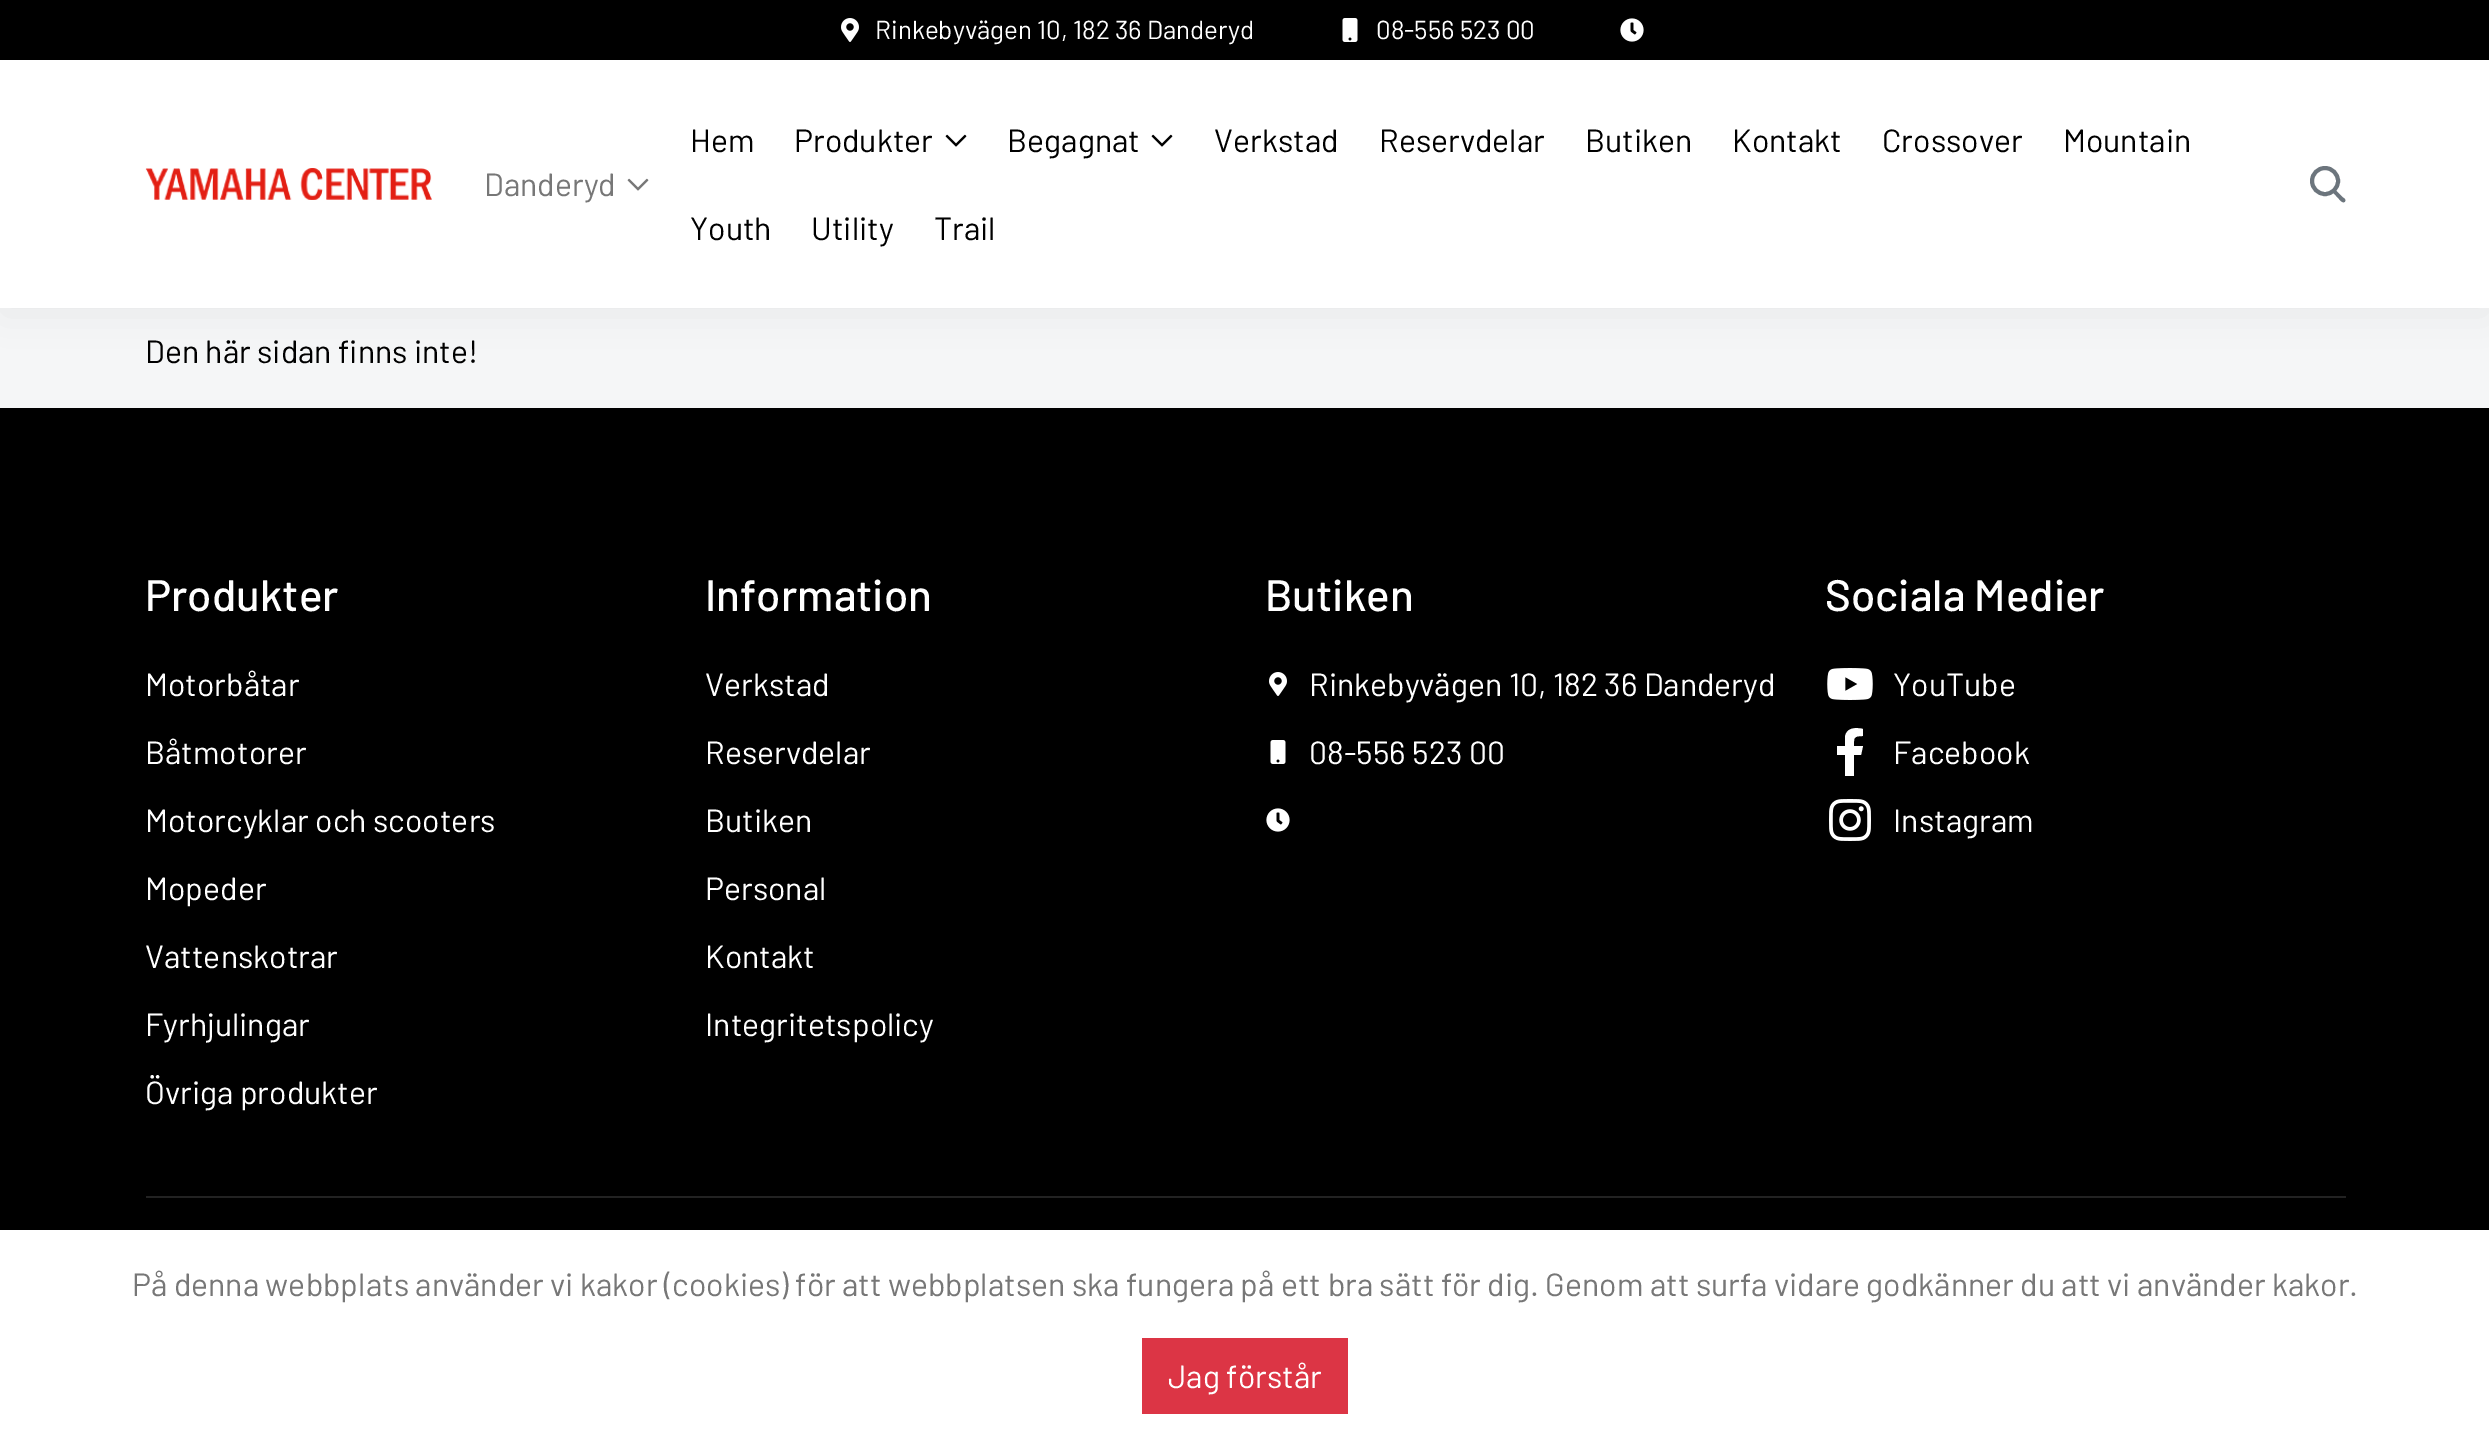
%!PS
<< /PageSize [2489 1443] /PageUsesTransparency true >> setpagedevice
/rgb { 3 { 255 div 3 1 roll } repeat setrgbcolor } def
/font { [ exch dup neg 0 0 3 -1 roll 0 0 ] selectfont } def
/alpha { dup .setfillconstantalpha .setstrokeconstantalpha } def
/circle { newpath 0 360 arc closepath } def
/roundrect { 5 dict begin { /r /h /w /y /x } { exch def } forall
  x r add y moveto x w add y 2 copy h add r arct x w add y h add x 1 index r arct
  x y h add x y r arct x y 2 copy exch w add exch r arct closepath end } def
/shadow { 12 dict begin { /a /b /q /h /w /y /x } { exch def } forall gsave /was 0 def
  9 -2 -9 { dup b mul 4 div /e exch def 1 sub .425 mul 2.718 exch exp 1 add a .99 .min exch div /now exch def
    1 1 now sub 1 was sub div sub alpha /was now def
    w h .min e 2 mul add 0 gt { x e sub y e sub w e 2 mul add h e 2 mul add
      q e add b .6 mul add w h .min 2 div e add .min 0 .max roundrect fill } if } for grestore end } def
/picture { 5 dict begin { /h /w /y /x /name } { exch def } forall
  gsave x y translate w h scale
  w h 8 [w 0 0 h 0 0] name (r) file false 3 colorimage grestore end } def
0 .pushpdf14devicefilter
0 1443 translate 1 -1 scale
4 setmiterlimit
245 246 247 rgb
0 0 2489 1443 rectfill
0 0 0 rgb
0 0 2489 60 rectfill
(img/1.rgb) 841 18 18 24 picture
(img/2.rgb) 1342 18 16 24 picture
(img/3.rgb) 1620 18 24 24 picture
2 70 2486 244 0 20 0.05 shadow
255 255 255 rgb
0 60 2489 248 rectfill
(img/4.rgb) 145 168 287 32 picture
(img/5.rgb) 627 178 22 13 picture
(img/6.rgb) 945 134 22 13 picture
(img/6.rgb) 1151 134 22 13 picture
108 117 125 rgb
4 setlinewidth
2325 181 13 circle stroke
2336 190.5 moveto 2343 197.5 lineto 2344.5 198.5 2346 199.5 2345 201.5 curveto 2343 204 2340 200 2339 199 curveto 2333 192.5 lineto 2332 190.5 2334.5 189 2336 190.5 curveto closepath fill
0 0 0 rgb
0 408 2489 822 rectfill
34 34 34 rgb
146 1196 2200 2 rectfill
(img/1.rgb) 1269 672 18 24 picture
(img/2.rgb) 1270 740 16 24 picture
(img/3.rgb) 1266 808 24 24 picture
(img/7.rgb) 1827 668 46 32 picture
255 255 255 rgb
1861 755 moveto 1863 746 lineto 1854 746 lineto 1854 738 1853 736 1863 736 curveto 1863 729 lineto 1855 727 1846 728 1845 737 curveto 1845 746 lineto 1837 746 lineto 1837 755 lineto 1845 755 lineto 1845 776 lineto 1854 776 lineto 1854 755 lineto closepath fill
(img/8.rgb) 1829 799 42 42 picture
0 1230 2489 213 rectfill
220 53 69 rgb
1142 1338 206 76 rectfill
/Barlow-Regular 26 font
255 255 255 rgb
875 39 moveto (Rinkebyvägen 10, 182 36 Danderyd) show
1376 39 moveto (08-556 523 00) show
/Barlow-Regular 32 font
119 119 119 rgb
484 196 moveto (Danderyd) show
0 0 0 rgb
[
  [(Hem) 690 152]
  [(Produkter) 794 152]
  [(Begagnat) 1007 152]
  [(Verkstad) 1214 152]
  [(Reservdelar) 1379 152]
  [(Butiken) 1585 152]
  [(Kontakt) 1732 152]
  [(Crossover) 1882 152]
  [(Mountain) 2063 152]
  [(Youth) 690 240]
  [(Utility) 811 240]
  [(Trail) 934 240]
  [(Den här sidan finns inte!) 145 363]
] { aload pop moveto show } forall
/Barlow-Medium 44 font
255 255 255 rgb
145 611 moveto (Produkter) show
/Barlow-Regular 32 font
[
  [(Motorbåtar) 145 696]
  [(Båtmotorer) 145 764]
  [(Motorcyklar och scooters) 145 832]
  [(Mopeder) 145 900]
  [(Vattenskotrar) 145 968]
  [(Fyrhjulingar) 145 1036]
  [(Övriga produkter) 145 1104]
] { aload pop moveto show } forall
/Barlow-Medium 44 font
705 611 moveto (Information) show
/Barlow-Regular 32 font
[
  [(Verkstad) 705 696]
  [(Reservdelar) 705 764]
  [(Butiken) 705 832]
  [(Personal) 705 900]
  [(Kontakt) 705 968]
  [(Integritetspolicy) 705 1036]
] { aload pop moveto show } forall
/Barlow-Medium 44 font
1265 611 moveto (Butiken) show
/Barlow-Regular 32 font
1309 696 moveto (Rinkebyvägen 10, 182 36 Danderyd) show
1309 764 moveto (08-556 523 00) show
/Barlow-Medium 44 font
1825 611 moveto (Sociala Medier) show
/Barlow-Regular 32 font
[
  [(YouTube) 1893 696]
  [(Facebook) 1893 764]
  [(Instagram) 1893 832]
] { aload pop moveto show } forall
119 119 119 rgb
132 1296 moveto (På denna webbplats använder vi kakor \(cookies\) för att webbplatsen ska fungera på ett bra sätt för dig. Genom att surfa vidare godkänner du att vi använder kakor.) show
255 255 255 rgb
1168 1388 moveto (Jag förstår) show
.poppdf14devicefilter showpage
